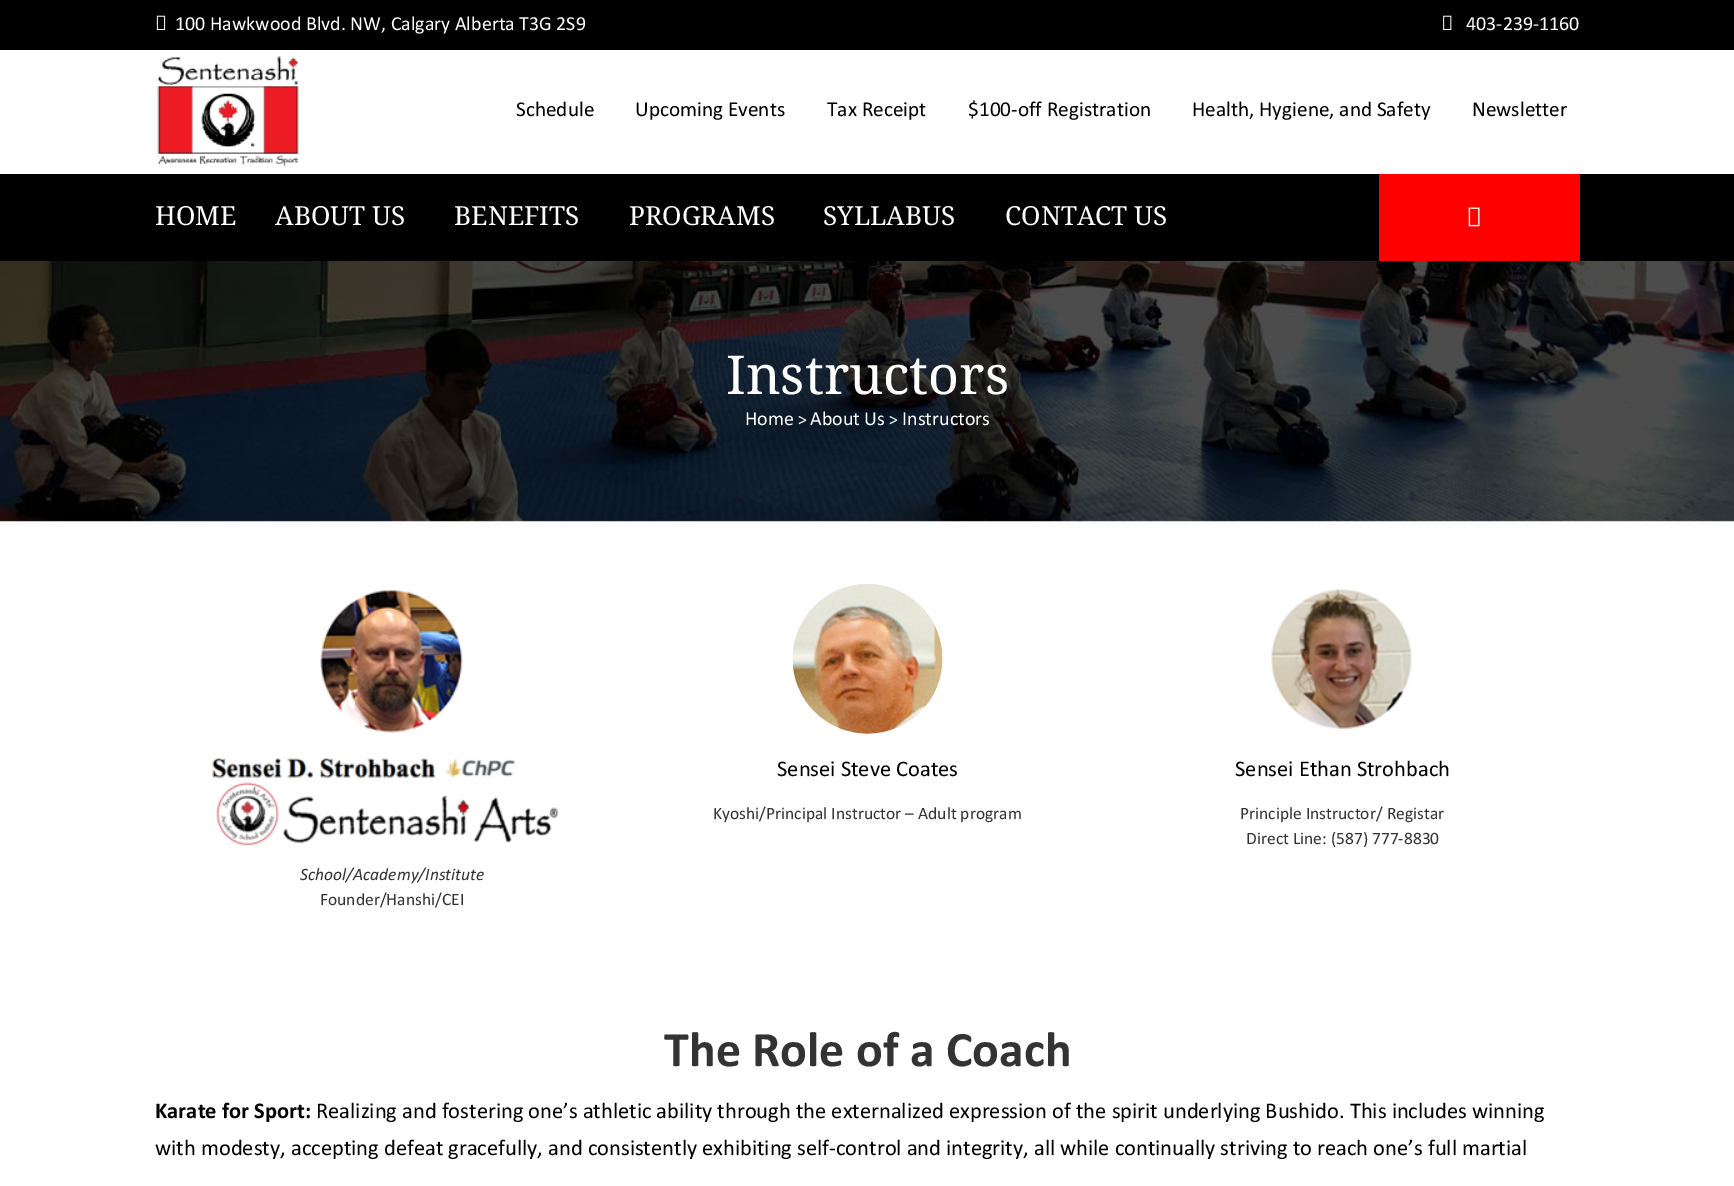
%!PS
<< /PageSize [1734 1186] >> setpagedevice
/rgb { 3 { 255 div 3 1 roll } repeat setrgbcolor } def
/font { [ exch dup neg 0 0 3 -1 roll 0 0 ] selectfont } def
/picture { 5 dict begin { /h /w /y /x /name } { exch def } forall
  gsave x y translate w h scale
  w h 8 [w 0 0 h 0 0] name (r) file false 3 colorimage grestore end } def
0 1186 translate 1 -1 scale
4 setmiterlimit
255 255 255 rgb
0 0 1734 1186 rectfill
0 0 0 rgb
0 0 1734 50 rectfill
(img/1.rgb) 156 15 10 15 picture
(img/2.rgb) 1443 15 9 15 picture
(img/3.rgb) 157 56 142 111 picture
0 174 1734 87 rectfill
255 0 0 rgb
1379 174 201 87 rectfill
(img/4.rgb) 1468 207 12 20 picture
(img/5.rgb) 0 261 1734 261 picture
(img/6.rgb) 792 584 151 150 picture
(img/7.rgb) 1271 588 141 141 picture
(img/8.rgb) 320 589 143 144 picture
(img/9.rgb) 212 757 347 89 picture
/Calibri-Regular 20 font
255 255 255 rgb
175 30 moveto (100 Hawkwood Blvd. NW, Calgary Alberta T3G 2S9) show
1466 30 moveto (403-239-1160) show
/Calibri-Regular 21.25 font
0 0 0 rgb
[
  [(Schedule) 516 116]
  [(Upcoming Events) 635 116]
  [(Tax Receipt) 827 116]
  [($100-off Registration) 968 116]
  [(Health, Hygiene, and Safety) 1192 116]
  [(Newsletter) 1472 116]
] { aload pop moveto show } forall
/DroidSerif-Regular 26.25 font
255 255 255 rgb
[
  [(HOME) 155 225]
  [(ABOUT US) 275 225]
  [(BENEFITS) 454 225]
  [(PROGRAMS) 629 225]
  [(SYLLABUS) 823 225]
  [(CONTACT US) 1005 225]
] { aload pop moveto show } forall
/DroidSerif-Regular 53.75 font
726 394 moveto (Instructors) show
/Calibri-Regular 20 font
745 425 moveto (Home) show
/Calibri-Regular 17.5 font
798 425 moveto (>) show
/Calibri-Regular 20 font
810 425 moveto (About Us) show
/Calibri-Regular 17.5 font
889 425 moveto (>) show
/Calibri-Regular 20 font
902 425 moveto (Instructors) show
/Calibri-Regular 22.5 font
0 0 0 rgb
777 776 moveto (Sensei Steve Coates) show
/Calibri-Regular 17.5 font
51 51 51 rgb
713 819 moveto (Kyoshi/Principal Instructor – Adult program) show
/Calibri-Regular 22.5 font
0 0 0 rgb
1235 776 moveto (Sensei Ethan Strohbach) show
/Calibri-Regular 17.5 font
51 51 51 rgb
1240 819 moveto (Principle Instructor/ Registar) show
1246 844 moveto (Direct Line: \(587\) 777-8830) show
/Calibri-Italic 17.5 font
300 880 moveto (School/Academy/Institute) show
/Calibri-Regular 17.5 font
320 905 moveto (Founder/Hanshi/CEI) show
/Calibri-Bold 50 font
664 1066 moveto (The Role of a Coach) show
/Calibri-Bold 22.5 font
0 0 0 rgb
155 1118 moveto (Karate for Sport:) show
/Calibri-Regular 22.5 font
316 1118 moveto (Realizing and fostering one’s athletic ability through the externalized expression of the spirit underlying Bushido. This includes winning) show
155 1155 moveto (with modesty, accepting defeat gracefully, and consistently exhibiting self-control and integrity, all while continually striving to reach one’s full martial) show
showpage
